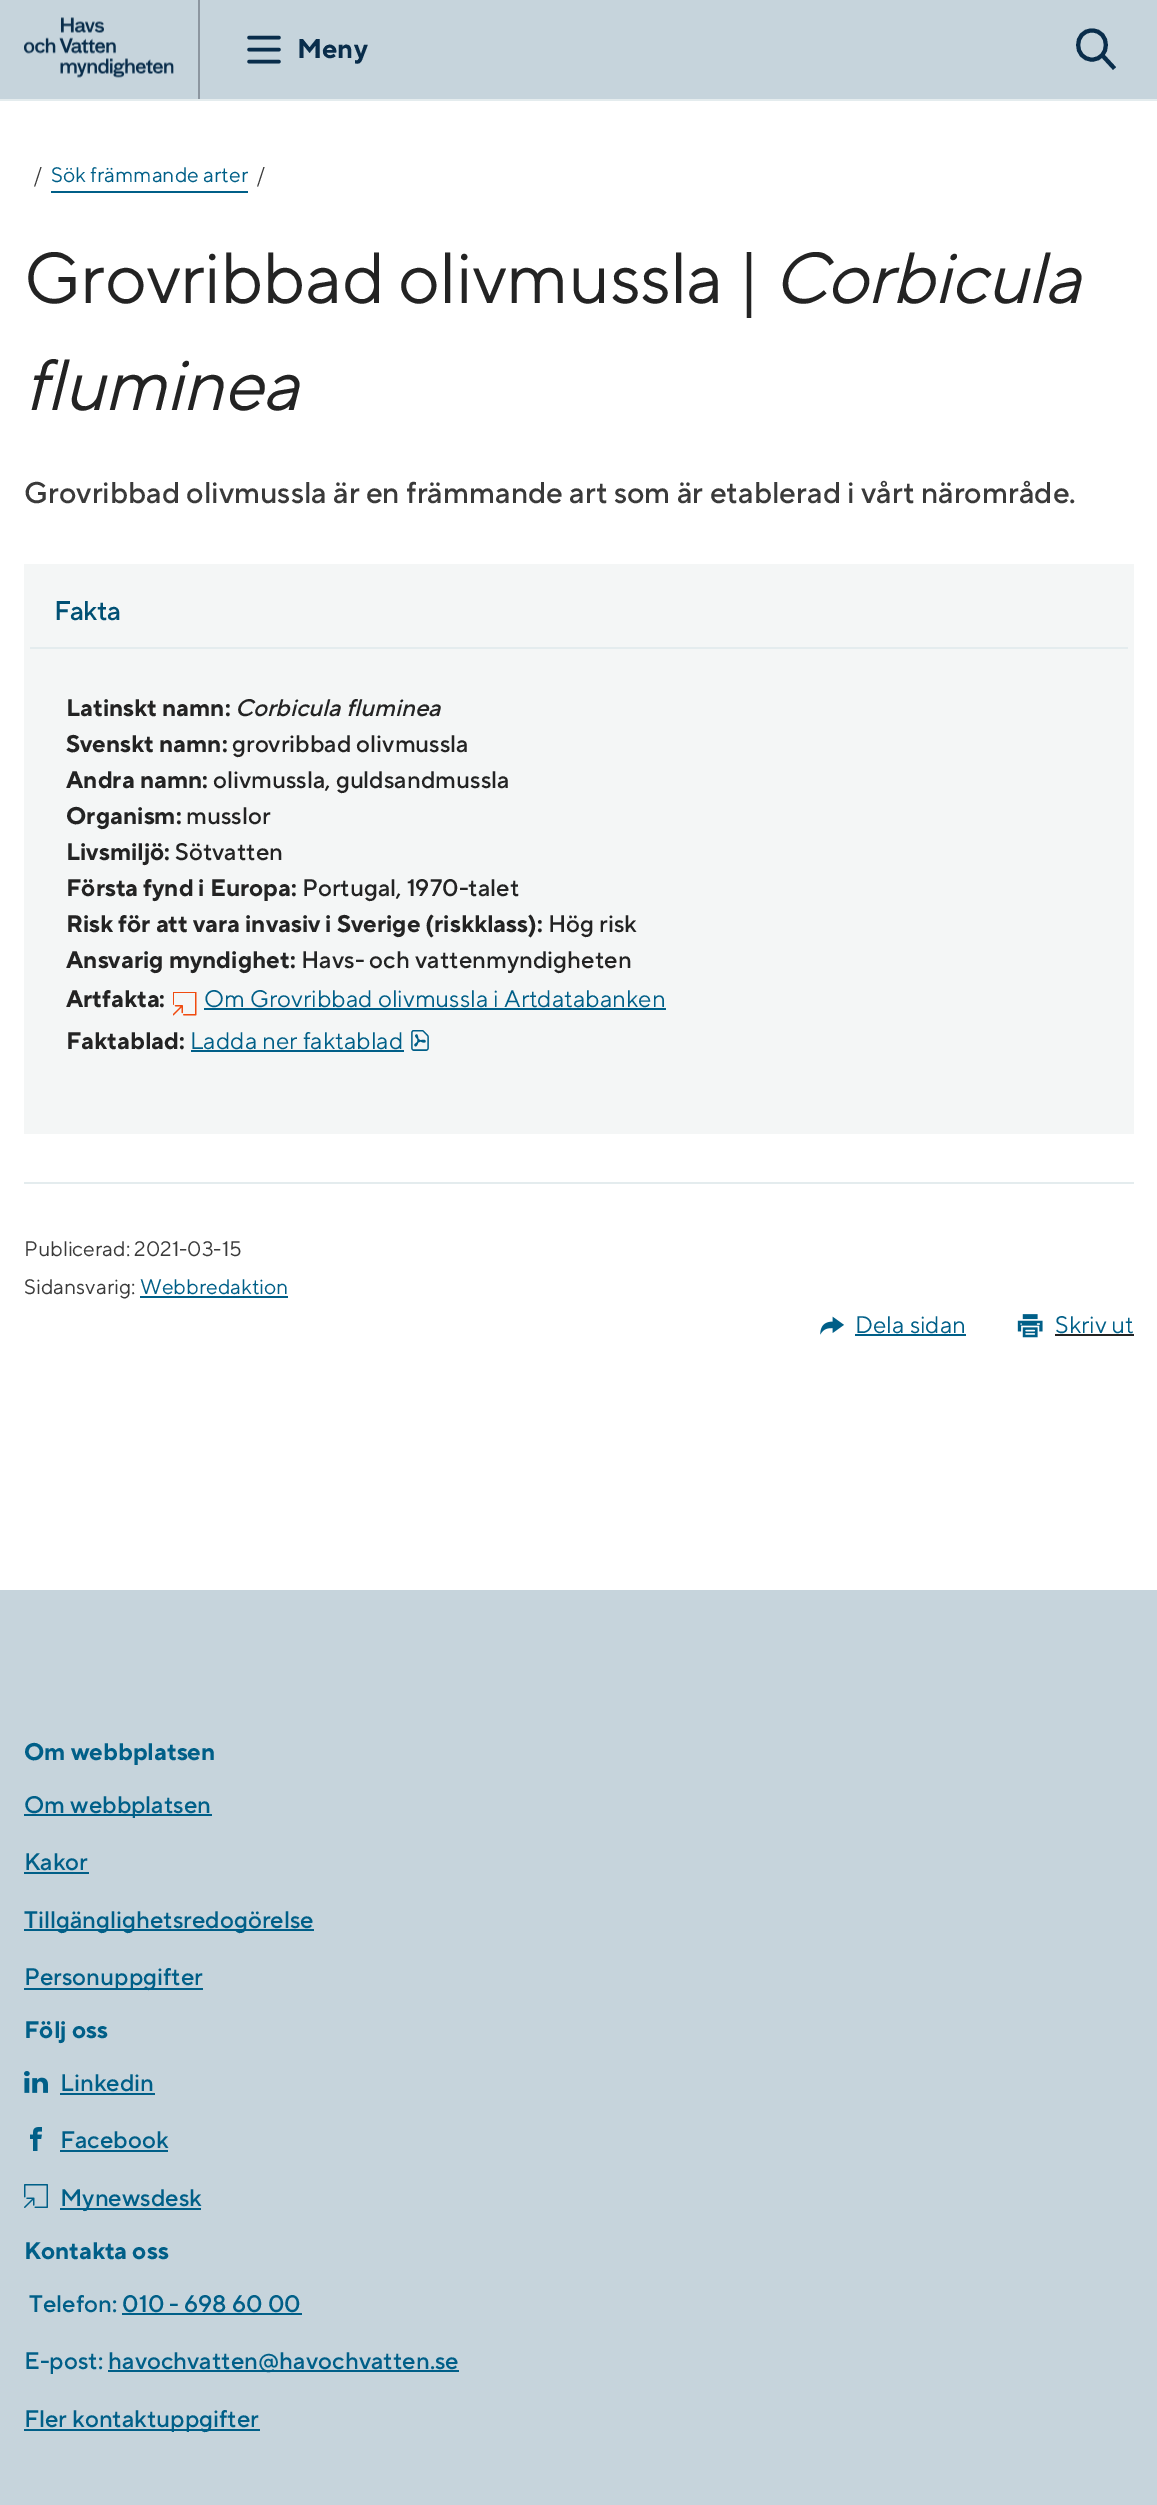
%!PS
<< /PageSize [1157 2505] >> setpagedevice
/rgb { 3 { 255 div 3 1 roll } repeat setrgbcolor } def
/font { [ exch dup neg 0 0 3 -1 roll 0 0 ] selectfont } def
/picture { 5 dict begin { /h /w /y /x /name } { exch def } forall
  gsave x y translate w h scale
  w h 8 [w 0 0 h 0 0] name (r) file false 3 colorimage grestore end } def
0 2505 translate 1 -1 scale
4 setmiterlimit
255 255 255 rgb
0 0 1157 2505 rectfill
198 212 220 rgb
0 0 198 99 rectfill
140 150 160 rgb
198 0 2 99 rectfill
(img/1.rgb) 24 17 150 61 picture
198 212 220 rgb
200 0 957 99 rectfill
9 45 75 rgb
3.4 setlinewidth
1 setlinecap
1 setlinejoin
249 37.5 moveto 279 37.5 lineto 249 49.5 moveto 279 49.5 lineto 249 61.5 moveto 279 61.5 lineto stroke
4 setlinewidth
0 setlinecap
0 setlinejoin
1102 55 moveto 1114.5 68.5 lineto 1092 30.5 moveto 1110.5 30.5 1110.5 59.5 1092 59.5 curveto 1073.5 59.5 1073.5 30.5 1092 30.5 curveto closepath stroke
[
  [0 99 1157 2 228 236 238]
  [51 191 197 2 0 95 136]
  [24 564 1110 570 244 246 246]
  [30 647 1098 2 228 236 238]
] { aload pop rgb rectfill } forall
(img/2.rgb) 173 992 24 24 picture
0 95 136 rgb
204 1008 462 2 rectfill
191 1050 213 2 rectfill
(img/3.rgb) 411 1030 18 21 picture
228 236 238 rgb
24 1182 1110 2 rectfill
0 95 136 rgb
140 1296 148 2 rectfill
(img/4.rgb) 820 1316 24 19 picture
855 1334 111 2 rectfill
(img/5.rgb) 1017 1314 26 24 picture
[
  [1055 1334 79 2 35 35 35]
  [0 1590 1157 915 198 212 220]
  [24 1814 188 2 0 95 136]
  [24 1872 65 2 0 95 136]
  [24 1929 290 2 0 95 136]
  [24 1988 179 2 0 95 136]
] { aload pop rgb rectfill } forall
(img/6.rgb) 24 2071 24 22 picture
60 2093 95 2 rectfill
(img/7.rgb) 30 2127 12 24 picture
60 2150 108 2 rectfill
(img/8.rgb) 24 2184 24 24 picture
[
  [60 2208 141 2 0 95 136]
  [122 2313 180 2 0 95 136]
  [108 2370 351 2 0 95 136]
  [24 2429 236 2 0 95 136]
] { aload pop rgb rectfill } forall
/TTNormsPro-Bold 27 font
9 45 75 rgb
297 58 moveto (Meny) show
/TTNormsPro-Regular 21 font
58 58 58 rgb
34 182 moveto (/) show
0 95 136 rgb
51 182 moveto (Sök främmande arter) show
58 58 58 rgb
257 182 moveto (/) show
/TTNormsPro-Regular 72 font
35 35 35 rgb
24 303 moveto -0.75 0 (Grovribbad olivmussla |) ashow
/TTNormsPro-Italic 72 font
773 303 moveto -0.75 0 (Corbicula) ashow
24 410 moveto -0.75 0 (fluminea) ashow
/TTNormsPro-Medium 30 font
58 58 58 rgb
24 503 moveto (Grovribbad olivmussla är en främmande art som är etablerad i vårt närområde.) show
/TTNormsPro-Medium 27 font
0 80 116 rgb
54 620 moveto -0.75 0 (Fakta) ashow
/TTNormsPro-Bold 24 font
35 35 35 rgb
66 716 moveto (Latinskt namn:) show
/TTNormsPro-MediumItalic 24 font
235 716 moveto (Corbicula fluminea) show
/TTNormsPro-Bold 24 font
66 752 moveto (Svenskt namn:) show
/TTNormsPro-Medium 24 font
232 752 moveto (grovribbad olivmussla) show
/TTNormsPro-Bold 24 font
66 788 moveto (Andra namn:) show
/TTNormsPro-Medium 24 font
213 788 moveto (olivmussla, guldsandmussla) show
/TTNormsPro-Bold 24 font
66 824 moveto (Organism:) show
/TTNormsPro-Medium 24 font
186 824 moveto (musslor) show
/TTNormsPro-Bold 24 font
66 860 moveto (Livsmiljö:) show
/TTNormsPro-Medium 24 font
175 860 moveto (Sötvatten) show
/TTNormsPro-Bold 24 font
66 896 moveto (Första fynd i Europa:) show
/TTNormsPro-Medium 24 font
302 896 moveto (Portugal, 1970-talet) show
/TTNormsPro-Bold 24 font
66 932 moveto (Risk för att vara invasiv i Sverige \(riskklass\):) show
/TTNormsPro-Medium 24 font
548 932 moveto (Hög risk) show
/TTNormsPro-Bold 24 font
66 968 moveto (Ansvarig myndighet:) show
/TTNormsPro-Medium 24 font
301 968 moveto (Havs- och vattenmyndigheten) show
/TTNormsPro-Bold 24 font
66 1007 moveto (Artfakta:) show
/TTNormsPro-Regular 24 font
0 95 136 rgb
204 1007 moveto (Om Grovribbad olivmussla i Artdatabanken) show
/TTNormsPro-Bold 24 font
35 35 35 rgb
66 1049 moveto (Faktablad:) show
/TTNormsPro-Regular 24 font
0 95 136 rgb
190 1049 moveto (Ladda ner faktablad) show
/TTNormsPro-Regular 21 font
58 58 58 rgb
24 1256 moveto (Publicerad: 2021-03-15) show
24 1294 moveto (Sidansvarig:) show
0 95 136 rgb
140 1294 moveto (Webbredaktion) show
/TTNormsPro-Regular 24 font
855 1333 moveto (Dela sidan) show
1055 1333 moveto (Skriv ut) show
/TTNormsPro-Bold 24 font
24 1760 moveto (Om webbplatsen) show
/TTNormsPro-Medium 24 font
[
  [(Om webbplatsen) 24 1813]
  [(Kakor) 24 1870]
  [(Tillgänglighetsredogörelse) 24 1928]
  [(Personuppgifter) 24 1985]
] { aload pop moveto show } forall
/TTNormsPro-Bold 24 font
24 2038 moveto (Följ oss) show
/TTNormsPro-Medium 24 font
[
  [(Linkedin) 60 2091]
  [(Facebook) 60 2148]
  [(Mynewsdesk) 60 2206]
] { aload pop moveto show } forall
/TTNormsPro-Bold 24 font
24 2259 moveto (Kontakta oss) show
/TTNormsPro-Medium 24 font
[
  [(Telefon: 010 - 698 60 00) 29 2312]
  [(E-post:) 24 2369]
  [(havochvatten@havochvatten.se) 108 2369]
  [(Fler kontaktuppgifter) 24 2427]
] { aload pop moveto show } forall
showpage
